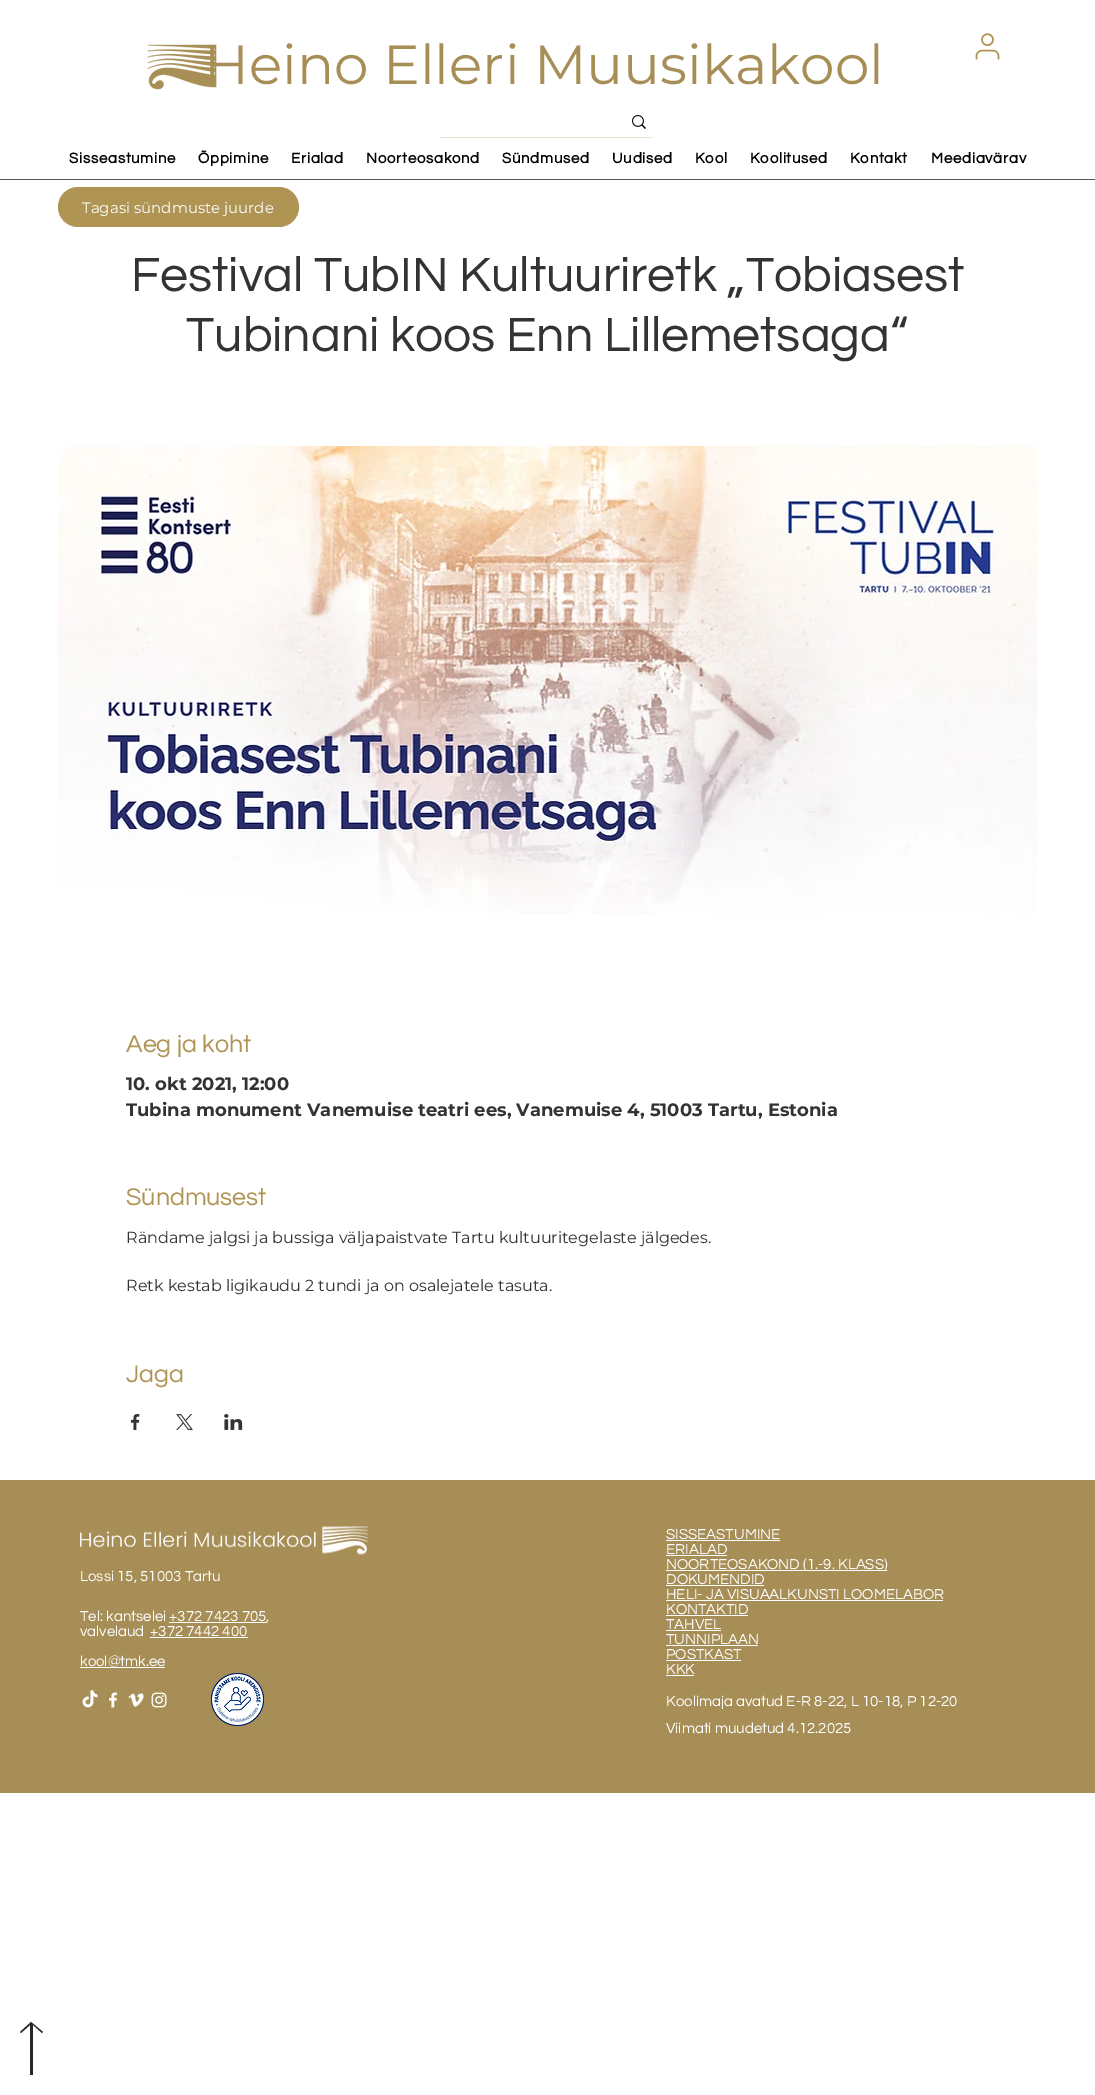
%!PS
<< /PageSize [1095 2095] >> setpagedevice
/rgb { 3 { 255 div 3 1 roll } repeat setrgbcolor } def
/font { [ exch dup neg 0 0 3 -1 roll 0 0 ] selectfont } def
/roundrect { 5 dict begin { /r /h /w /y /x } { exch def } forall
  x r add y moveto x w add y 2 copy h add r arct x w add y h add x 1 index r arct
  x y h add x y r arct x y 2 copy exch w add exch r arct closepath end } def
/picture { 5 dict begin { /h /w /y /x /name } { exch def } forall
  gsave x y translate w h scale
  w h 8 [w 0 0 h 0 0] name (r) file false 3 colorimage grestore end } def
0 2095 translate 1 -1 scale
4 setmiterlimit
255 255 255 rgb
0 0 1095 2095 rectfill
(img/1.rgb) 147 44 70 46 picture
(img/2.rgb) 975 33 25 27 picture
235 229 214 rgb
439 137 214 1 rectfill
(img/3.rgb) 632 115 14 14 picture
87 85 85 rgb
0 179 1095 1 rectfill
175 148 83 rgb
58 187 241 40 20 roundrect fill
(img/4.rgb) 58 446 979 468 picture
(img/5.rgb) 131 1414 9 16 picture
(img/6.rgb) 176 1414 17 16 picture
(img/7.rgb) 224 1414 19 16 picture
166 142 86 rgb
0 1480 1095 313 rectfill
(img/8.rgb) 79 1526 289 29 picture
[
  [666 1540 114 1 255 255 255]
  [666 1555 61 1 255 255 255]
  [666 1570 221 1 255 255 255]
  [666 1585 98 1 255 255 255]
  [666 1600 277 1 255 255 255]
  [666 1615 82 1 255 255 255]
  [666 1630 55 1 255 255 255]
  [666 1645 92 1 255 255 255]
  [666 1660 75 1 255 255 255]
  [666 1675 28 1 255 255 255]
  [169 1622 97 1 255 255 255]
  [150 1637 98 1 255 255 255]
  [80 1667 85 1 255 255 255]
] { aload pop rgb rectfill } forall
(img/9.rgb) 82 1690 16 18 picture
(img/10.rgb) 109 1692 9 16 picture
(img/11.rgb) 128 1693 16 14 picture
(img/12.rgb) 151 1692 16 16 picture
(img/13.rgb) 211 1673 53 53 picture
40 38 38 rgb
43 2032 moveto 31 2022 lineto 20 2032 lineto 21 2033 lineto 30 2025 lineto 30 2075 lineto 33 2075 lineto 33 2025 lineto 42 2033 lineto closepath fill
/Montserrat-Regular 55 font
166 142 86 rgb
204 84 moveto (Heino Elleri Muusikakool) show
/Questrial-Bold 15 font
0 0 0 rgb
69 163 moveto 0.75 0 (Sisseastumine) ashow
198 163 moveto 0.75 0 (Õppimine) ashow
291 163 moveto 0.75 0 (Erialad) ashow
366 163 moveto 0.75 0 (Noorteosakond) ashow
502 163 moveto 0.75 0 (Sündmused) ashow
612 163 moveto 0.75 0 (Uudised) ashow
695 163 moveto 0.75 0 (Kool) ashow
750 163 moveto 0.75 0 (Koolitused) ashow
850 163 moveto 0.75 0 (Kontakt) ashow
931 163 moveto 0.75 0 (Meediavärav) ashow
/Montserrat-Regular 15 font
255 255 255 rgb
82 213 moveto (Tagasi sündmuste juurde) show
/Questrial-Regular 50 font
51 51 51 rgb
131 291 moveto (Festival TubIN Kultuuriretk „Tobiasest) show
186 351 moveto (Tubinani koos Enn Lillemetsaga“) show
/Questrial-Regular 25 font
175 148 83 rgb
126 1052 moveto (Aeg ja koht) show
/Montserrat-Bold 18 font
51 51 51 rgb
126 1090 moveto (10. okt 2021, 12:00) show
126 1116 moveto (Tubina monument Vanemuise teatri ees, Vanemuise 4, 51003 Tartu, Estonia) show
/Questrial-Regular 25 font
175 148 83 rgb
126 1205 moveto (Sündmusest) show
/Montserrat-Regular 16 font
51 51 51 rgb
126 1243 moveto (Rändame jalgsi ja bussiga väljapaistvate Tartu kultuuritegelaste jälgedes.) show
126 1291 moveto (Retk kestab ligikaudu 2 tundi ja on osalejatele tasuta.) show
/Questrial-Regular 25 font
175 148 83 rgb
126 1382 moveto (Jaga) show
/Questrial-Regular 15 font
255 255 255 rgb
[
  [(SISSEASTUMINE) 666 1539]
  [(ERIALAD) 666 1554]
  [(NOORTEOSAKOND \(1.-9. KLASS\)) 666 1569]
  [(DOKUMENDID) 666 1584]
  [(HELI- JA VISUAALKUNSTI LOOMELABOR) 666 1599]
  [(KONTAKTID) 666 1614]
  [(TAHVEL) 666 1629]
  [(TUNNIPLAAN) 666 1644]
  [(POSTKAST) 666 1659]
  [(KKK) 666 1674]
  [(Koolimaja avatud E-R 8-22, L 10-18, P 12-20) 666 1706]
  [(Viimati muudetud 4.12.2025) 666 1733]
  [(Lossi 15, 51003 Tartu) 80 1581]
  [(Tel: kantselei +372 7423 705,) 80 1621]
  [(valvelaud) 80 1636]
  [(+372 7442 400) 150 1636]
  [(kool@tmk.ee) 80 1666]
] { aload pop moveto show } forall
showpage
